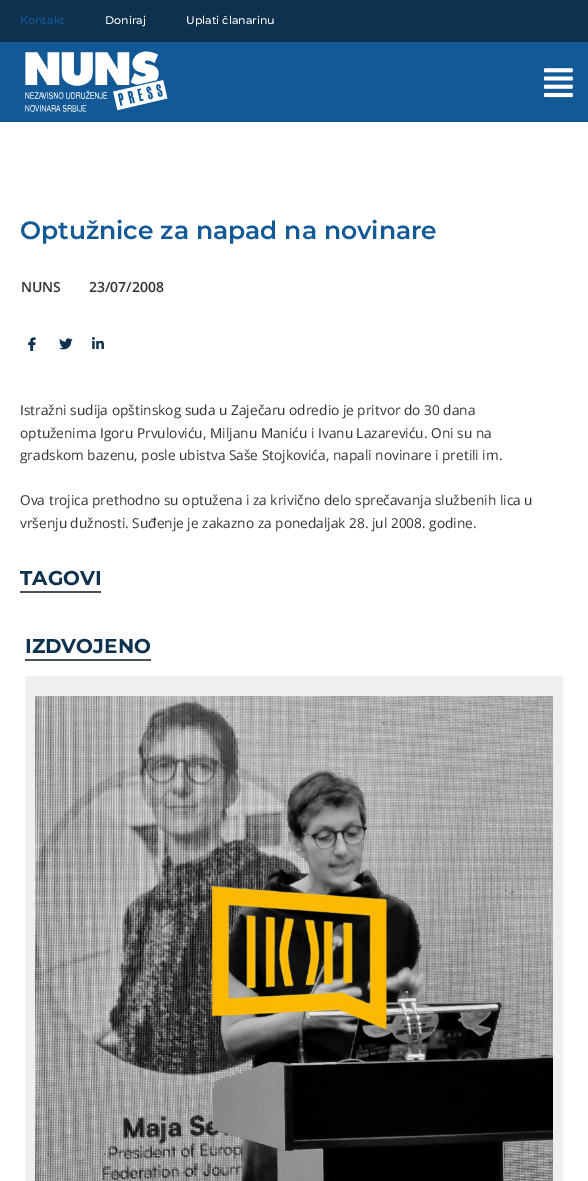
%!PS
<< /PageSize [588 1181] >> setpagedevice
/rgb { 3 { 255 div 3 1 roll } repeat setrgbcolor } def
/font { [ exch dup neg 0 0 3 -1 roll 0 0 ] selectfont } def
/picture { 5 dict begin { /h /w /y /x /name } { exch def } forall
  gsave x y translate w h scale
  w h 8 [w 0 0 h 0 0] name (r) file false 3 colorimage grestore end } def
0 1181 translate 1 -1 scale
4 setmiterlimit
255 255 255 rgb
0 0 588 1181 rectfill
14 49 79 rgb
0 0 588 42 rectfill
19 89 150 rgb
0 42 588 80 rectfill
(img/1.rgb) 25 51 144 61 picture
(img/2.rgb) 544 68 29 30 picture
(img/3.rgb) 28 337 8 14 picture
(img/4.rgb) 59 338 14 12 picture
(img/5.rgb) 92 337 12 12 picture
[
  [20 591 81 2 75 79 88]
  [25 659 126 2 75 79 88]
  [25 676 538 505 239 239 239]
] { aload pop rgb rectfill } forall
(img/6.rgb) 35 696 518 485 picture
/Montserrat-Medium 11 font
19 89 150 rgb
20 24 moveto (Kontakt) show
255 255 255 rgb
105 24 moveto (Doniraj) show
186 24 moveto (Uplati članarinu) show
/Montserrat-SemiBold 25 font
19 89 150 rgb
20 239 moveto (Optužnice za napad na novinare) show
/OpenSans-SemiBold 14 font
51 51 51 rgb
21 292 moveto (NUNS) show
89 292 moveto (23/07/2008) show
/OpenSans-Regular 13.7 font
[
  [(Istražni sudija opštinskog suda u Zaječaru odredio je pritvor do 30 dana) 20 415]
  [(optuženima Igoru Prvuloviću, Miljanu Maniću i Ivanu Lazareviću. Oni su na) 20 438]
  [(gradskom bazenu, posle ubistva Saše Stojkovića, napali novinare i pretili im.) 20 460]
  [(Ova trojica prethodno su optužena i za krivično delo sprečavanja službenih lica u) 20 505]
  [(vršenju dužnosti. Suđenje je zakazno za ponedaljak 28. jul 2008. godine.) 20 528]
] { aload pop moveto show } forall
/Montserrat-Bold 20 font
14 49 79 rgb
20 585 moveto (TAGOVI) show
25 653 moveto (IZDVOJENO) show
showpage
